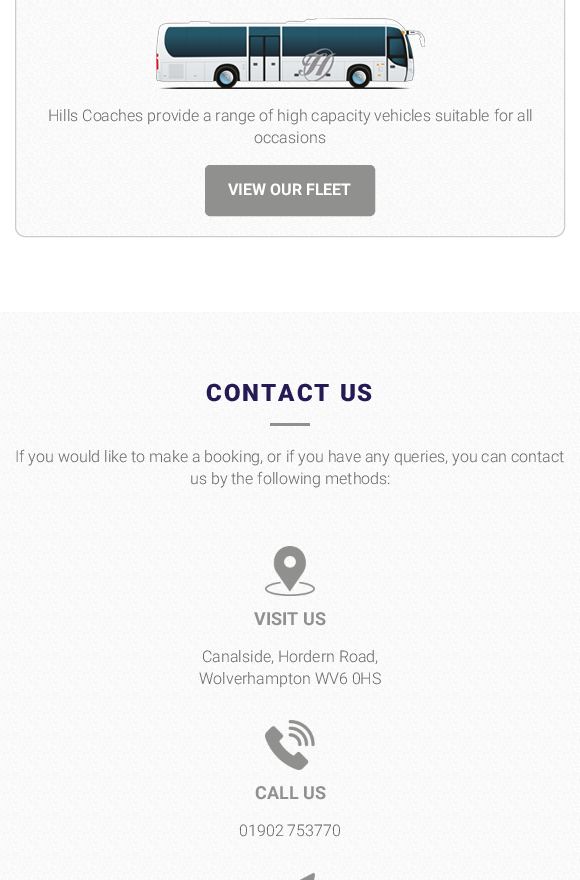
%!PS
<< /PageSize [580 880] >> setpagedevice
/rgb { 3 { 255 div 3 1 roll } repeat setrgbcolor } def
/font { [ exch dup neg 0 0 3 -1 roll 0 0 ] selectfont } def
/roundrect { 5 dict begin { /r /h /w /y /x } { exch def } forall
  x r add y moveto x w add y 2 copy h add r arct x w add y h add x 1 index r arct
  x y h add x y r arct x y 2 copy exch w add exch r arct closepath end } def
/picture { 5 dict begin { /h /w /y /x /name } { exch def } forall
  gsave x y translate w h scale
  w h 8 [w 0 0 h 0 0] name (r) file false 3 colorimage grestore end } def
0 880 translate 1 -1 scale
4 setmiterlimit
255 255 255 rgb
0 0 580 880 rectfill
(img/1.rgb) 15 0 550 237 picture
204 204 204 rgb
15.5 -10.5 549 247 9.5 roundrect stroke
(img/2.rgb) 156 18 269 71 picture
144 144 143 rgb
205.5 165.5 169 50 4.5 roundrect gsave fill grestore
stroke
(img/3.rgb) 0 312 580 568 picture
270 423 40 3 rectfill
(img/4.rgb) 265 546 50 50 picture
(img/5.rgb) 265 720 50 50 picture
(img/6.rgb) 299 872 16 8 picture
/Roboto-Light 16 font
102 102 102 rgb
48 121 moveto (Hills Coaches provide a range of high capacity vehicles suitable for all) show
254 143 moveto (occasions) show
/Roboto-Bold 16 font
255 255 255 rgb
228 195 moveto (VIEW OUR FLEET) show
/Roboto-Black 24 font
38 26 84 rgb
206 401 moveto 2 0 (CONTACT US) ashow
/Roboto-Light 16 font
102 102 102 rgb
15 462 moveto (If you would like to make a booking, or if you have any queries, you can contact) show
190 484 moveto (us by the following methods:) show
/Roboto-Bold 18 font
144 144 143 rgb
254 625 moveto (VISIT US) show
/Roboto-Light 16 font
102 102 102 rgb
202 662 moveto (Canalside, Hordern Road,) show
199 684 moveto (Wolverhampton WV6 0HS) show
/Roboto-Bold 18 font
144 144 143 rgb
255 799 moveto (CALL US) show
/Roboto-Light 16 font
102 102 102 rgb
239 836 moveto (01902 753770) show
showpage
